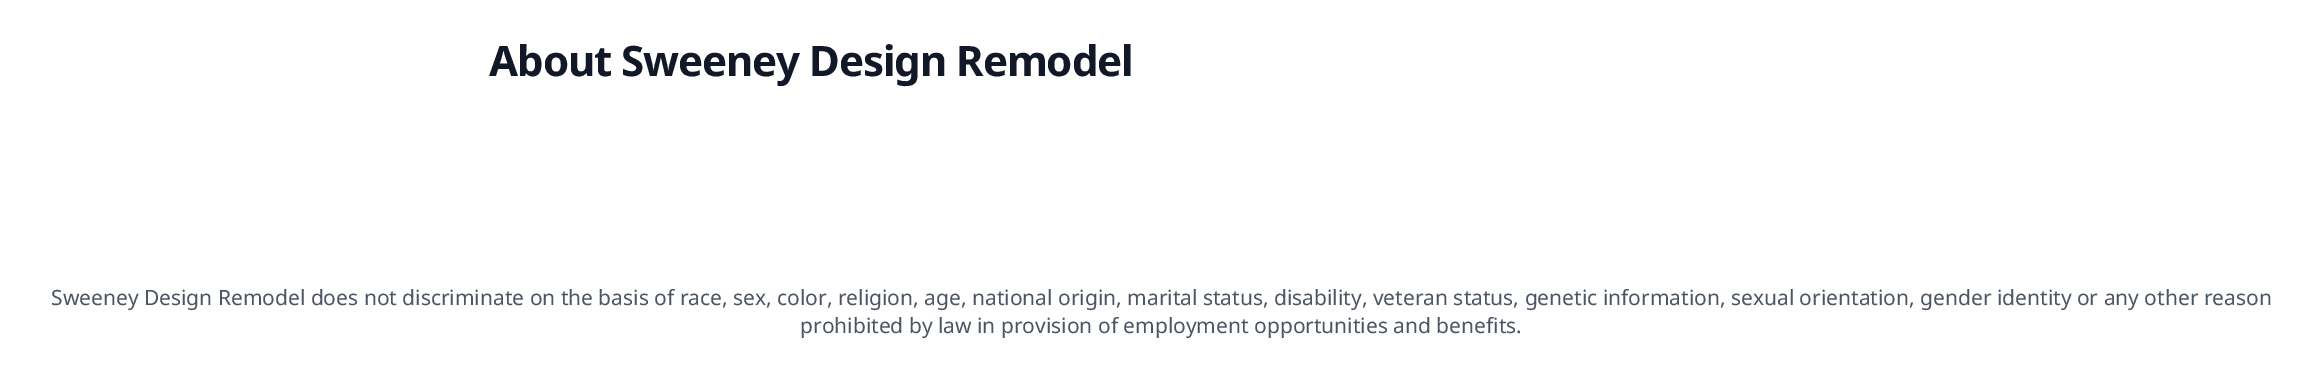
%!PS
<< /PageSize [2322 366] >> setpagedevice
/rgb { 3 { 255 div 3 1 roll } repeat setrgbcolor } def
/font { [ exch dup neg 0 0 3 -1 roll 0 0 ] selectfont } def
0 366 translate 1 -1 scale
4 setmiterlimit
255 255 255 rgb
0 0 2322 366 rectfill
/NotoSans-Bold 42 font
17 24 39 rgb
489 76 moveto -1.05 0 (About Sweeney Design Remodel) ashow
/NotoSans-Regular 21 font
75 85 99 rgb
51 305 moveto (Sweeney Design Remodel does not discriminate on the basis of race, sex, color, religion, age, national origin, marital status, disability, veteran status, genetic information, sexual orientation, gender identity or any other reason) show
800 333 moveto (prohibited by law in provision of employment opportunities and benefits.) show
showpage
